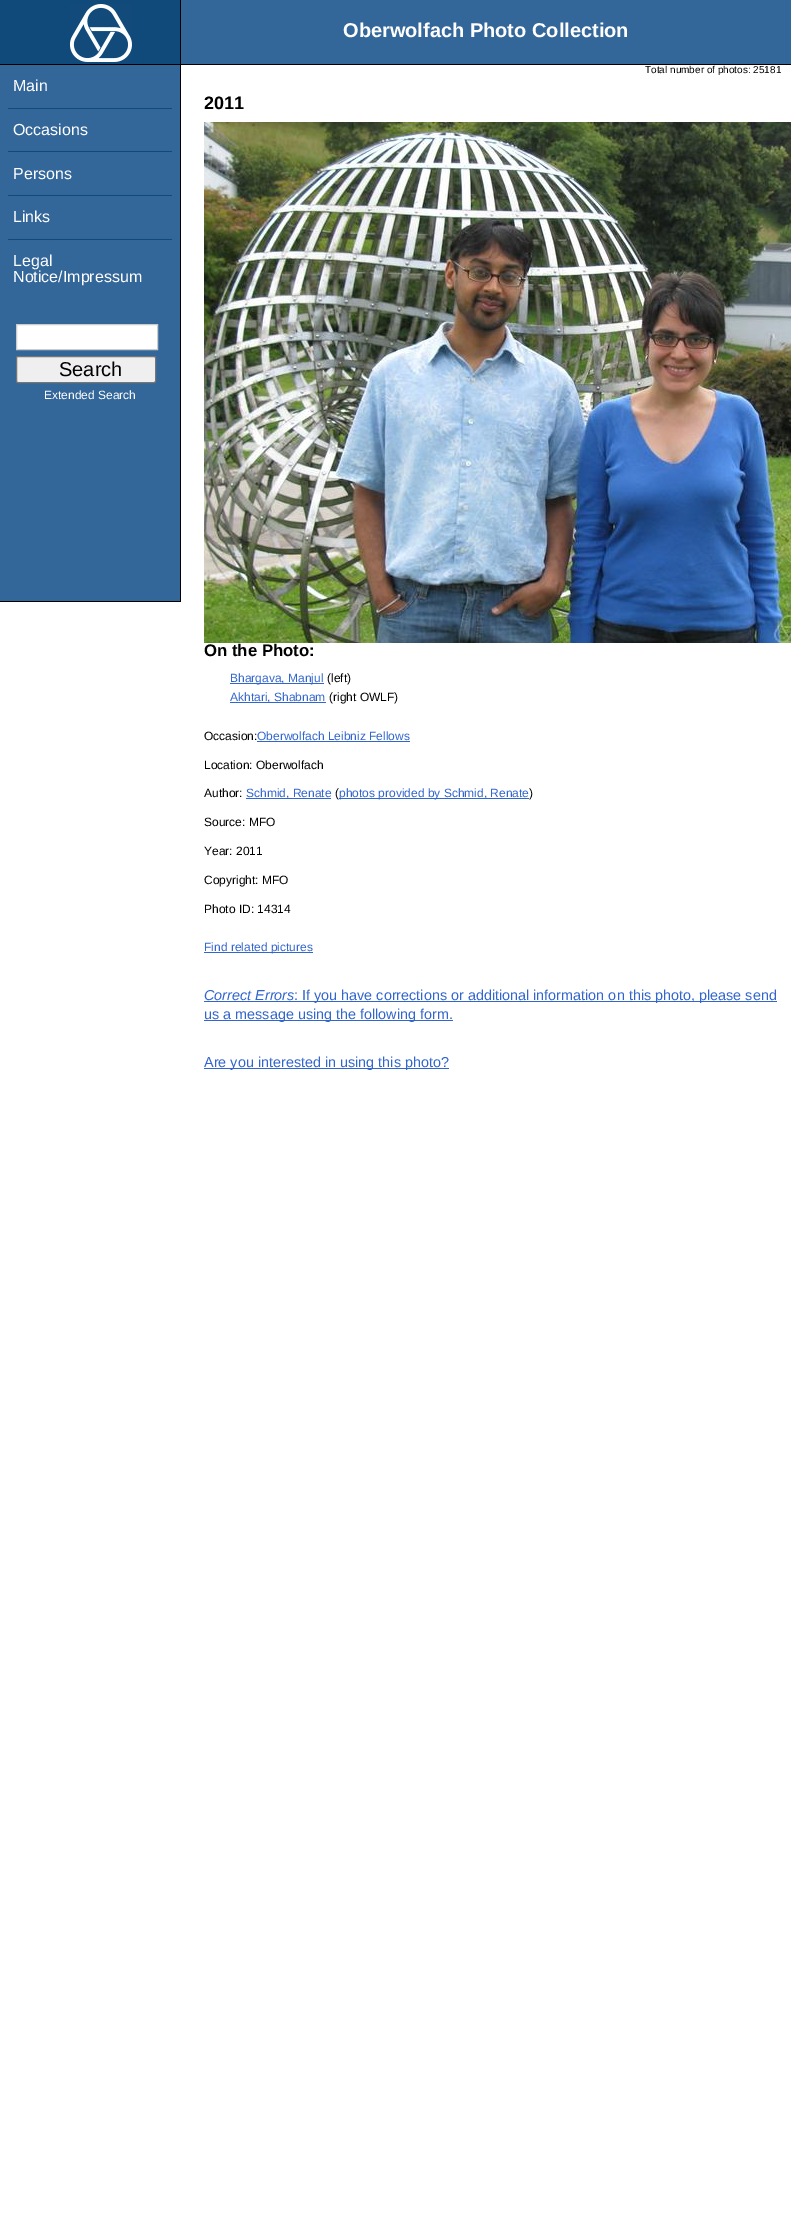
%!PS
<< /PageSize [791 2235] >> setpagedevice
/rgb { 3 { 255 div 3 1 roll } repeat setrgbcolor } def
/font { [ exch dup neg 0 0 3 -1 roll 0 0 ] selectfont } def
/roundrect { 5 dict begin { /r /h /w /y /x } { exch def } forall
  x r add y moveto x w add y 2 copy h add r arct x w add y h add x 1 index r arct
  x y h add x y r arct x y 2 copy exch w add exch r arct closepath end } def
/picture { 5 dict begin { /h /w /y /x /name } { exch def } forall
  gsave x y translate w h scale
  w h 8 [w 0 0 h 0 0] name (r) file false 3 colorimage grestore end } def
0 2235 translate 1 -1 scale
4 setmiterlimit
255 255 255 rgb
0 0 791 2235 rectfill
[
  [181 0 610 64 51 102 153]
  [0 64 791 1 0 0 0]
  [0 0 180 64 16 74 123]
  [180 0 1 64 0 0 0]
] { aload pop rgb rectfill } forall
(img/1.rgb) 70 4 62 58 picture
[
  [0 65 180 536 51 102 153]
  [180 65 1 537 0 0 0]
  [0 601 181 1 0 0 0]
  [8 108 164 1 16 74 123]
  [8 151 164 1 16 74 123]
  [8 195 164 1 16 74 123]
  [8 239 164 1 16 74 123]
] { aload pop rgb rectfill } forall
255 255 255 rgb
16.5 324.5 moveto 157.5 324.5 lineto 157.5 349.5 lineto 16.5 349.5 lineto closepath gsave fill grestore
204 204 204 rgb
stroke
239 239 239 rgb
16.5 356.5 139 26 1.5 roundrect gsave fill grestore
118 118 118 rgb
stroke
(img/2.rgb) 204 122 587 521 picture
[
  [230 683 94 1 51 102 204]
  [230 702 96 1 51 102 204]
  [257 741 153 1 51 102 204]
  [246 798 85 1 51 102 204]
  [339 798 190 1 51 102 204]
  [204 952 109 1 51 102 204]
  [204 1001 573 1 51 102 204]
  [204 1020 249 1 51 102 204]
  [204 1068 245 1 51 102 204]
] { aload pop rgb rectfill } forall
/LiberationSans-Bold 20 font
255 255 255 rgb
343 37 moveto (Oberwolfach Photo Collection) show
/LiberationSans-Regular 10 font
0 0 0 rgb
645 73 moveto (Total number of photos: 25181) show
/LiberationSans-Regular 16 font
255 255 255 rgb
[
  [(Main) 13 91]
  [(Occasions) 13 135]
  [(Persons) 13 179]
  [(Links) 13 222]
  [(Legal) 13 266]
  [(Notice/Impressum) 13 282]
] { aload pop moveto show } forall
/LiberationSans-Regular 20 font
0 0 0 rgb
59 376 moveto (Search) show
/LiberationSans-Regular 12 font
255 255 255 rgb
44 399 moveto (Extended Search) show
/LiberationSans-Bold 18 font
0 0 0 rgb
204 109 moveto (2011) show
/LiberationSans-Bold 16.75 font
204 656 moveto (On the Photo:) show
/LiberationSans-Regular 12 font
51 102 204 rgb
230 682 moveto (Bhargava, Manjul) show
0 0 0 rgb
327 682 moveto (\(left\)) show
51 102 204 rgb
230 701 moveto (Akhtari, Shabnam) show
0 0 0 rgb
329 701 moveto (\(right OWLF\)) show
204 740 moveto (Occasion:) show
51 102 204 rgb
257 740 moveto (Oberwolfach Leibniz Fellows) show
0 0 0 rgb
204 769 moveto (Location: Oberwolfach) show
204 797 moveto (Author:) show
51 102 204 rgb
246 797 moveto (Schmid, Renate) show
0 0 0 rgb
335 797 moveto (\() show
51 102 204 rgb
339 797 moveto (photos provided by Schmid, Renate) show
0 0 0 rgb
[
  [(\)) 529 797]
  [(Source: MFO) 204 826]
  [(Year: 2011) 204 855]
  [(Copyright: MFO) 204 884]
  [(Photo ID: 14314) 204 913]
] { aload pop moveto show } forall
51 102 204 rgb
204 951 moveto (Find related pictures) show
/LiberationSans-Italic 14.4 font
204 1000 moveto (Correct Errors) show
/LiberationSans-Regular 14.4 font
[
  [(: If you have corrections or additional information on this photo, please send) 294 1000]
  [(us a message using the following form.) 204 1019]
  [(Are you interested in using this photo?) 204 1067]
] { aload pop moveto show } forall
showpage
